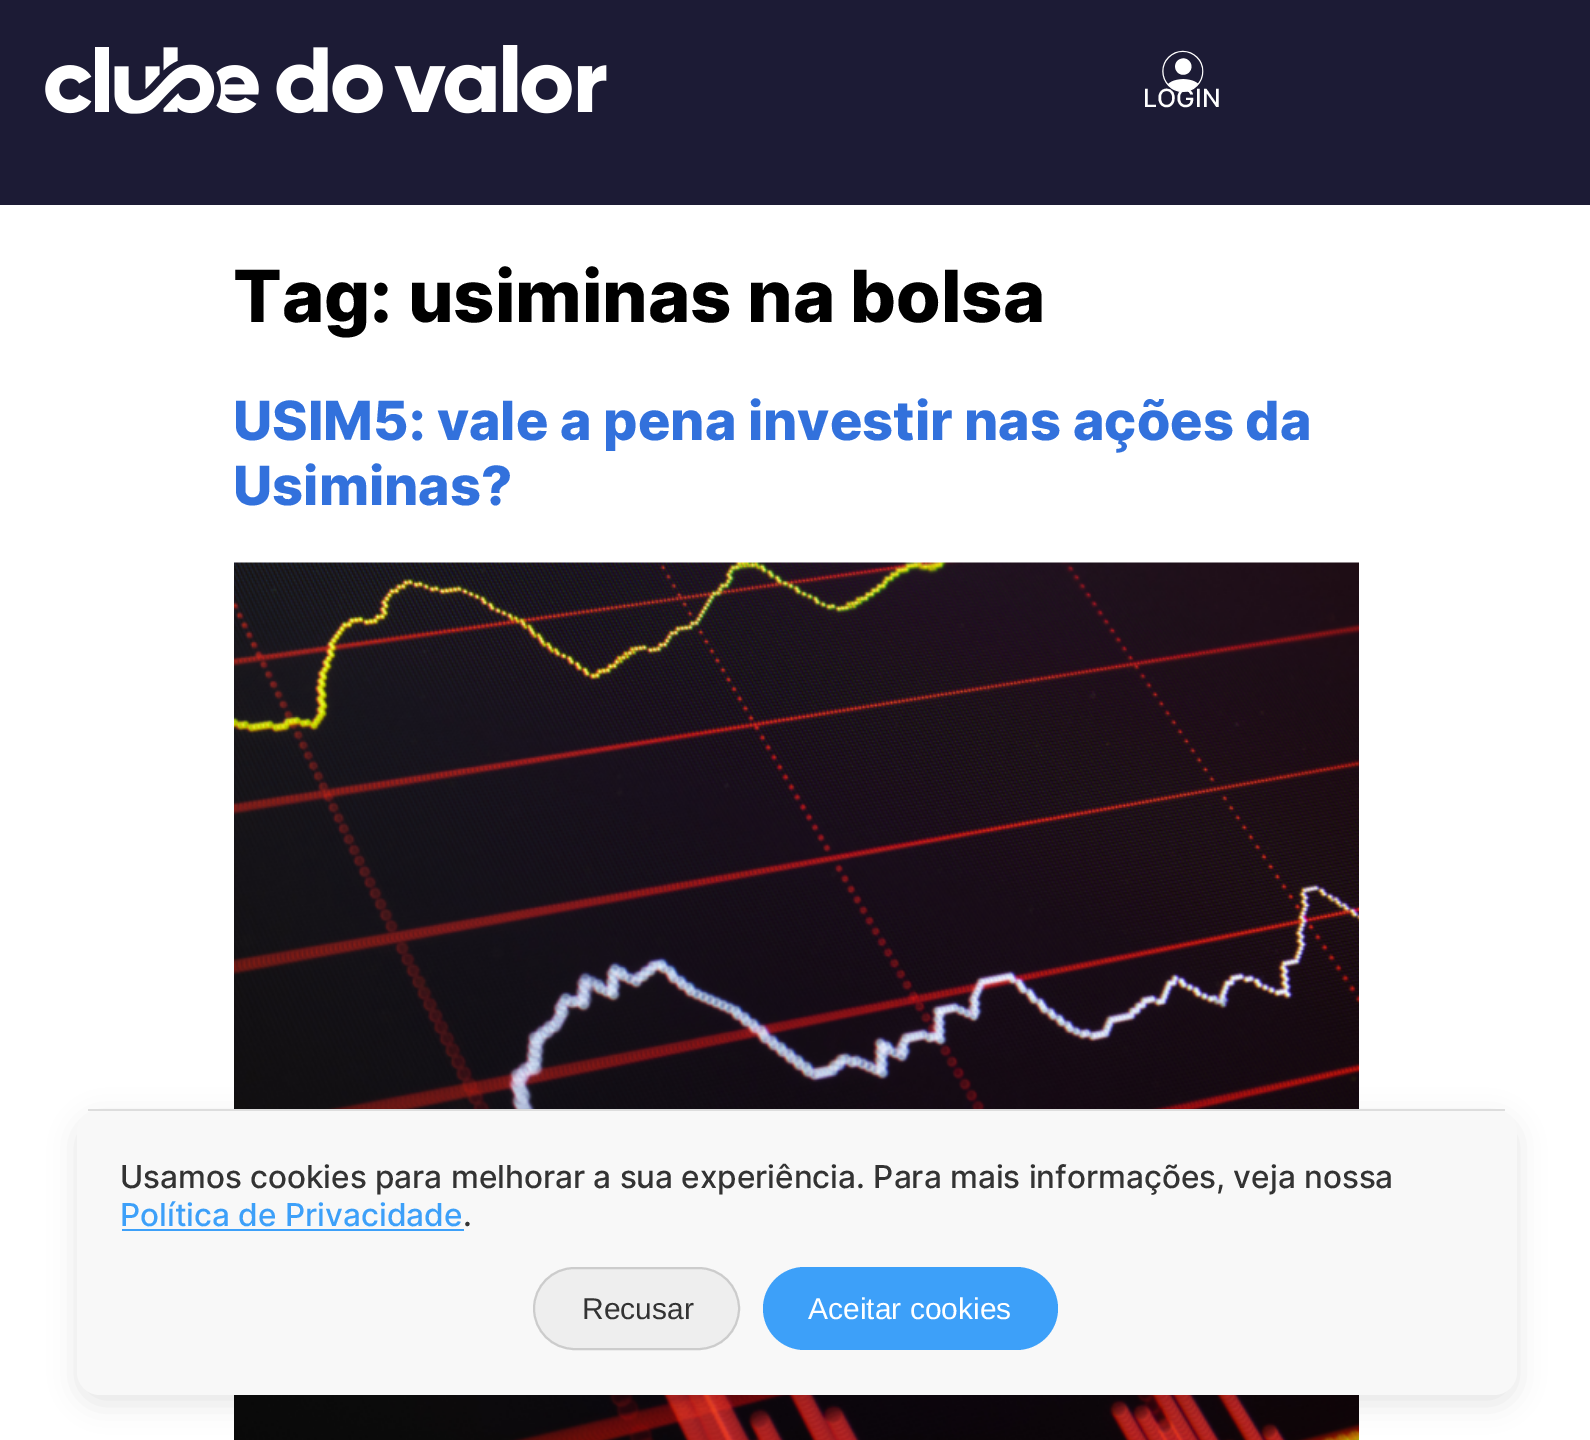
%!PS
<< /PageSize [1590 1440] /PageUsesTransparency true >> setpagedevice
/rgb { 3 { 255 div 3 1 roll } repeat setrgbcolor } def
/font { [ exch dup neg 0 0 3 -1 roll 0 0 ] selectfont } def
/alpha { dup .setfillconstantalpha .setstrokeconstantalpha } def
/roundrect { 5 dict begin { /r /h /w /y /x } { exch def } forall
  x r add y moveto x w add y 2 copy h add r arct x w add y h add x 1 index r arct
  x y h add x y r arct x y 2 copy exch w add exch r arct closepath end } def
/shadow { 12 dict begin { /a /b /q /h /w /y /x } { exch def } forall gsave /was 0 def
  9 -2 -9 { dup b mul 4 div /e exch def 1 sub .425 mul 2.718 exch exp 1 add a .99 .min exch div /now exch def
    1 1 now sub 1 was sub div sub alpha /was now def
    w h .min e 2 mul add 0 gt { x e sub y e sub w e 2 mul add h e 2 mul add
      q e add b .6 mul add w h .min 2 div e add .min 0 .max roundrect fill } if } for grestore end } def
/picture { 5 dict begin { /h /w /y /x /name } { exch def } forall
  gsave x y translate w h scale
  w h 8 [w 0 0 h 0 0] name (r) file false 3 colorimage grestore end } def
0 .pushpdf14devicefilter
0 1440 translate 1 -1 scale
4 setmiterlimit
255 255 255 rgb
0 0 1590 1440 rectfill
28 27 53 rgb
0 0 1590 205 rectfill
(img/1.rgb) 45 45 562 69 picture
(img/2.rgb) 1162 50 42 42 picture
(img/3.rgb) 234 562 1125 878 picture
0 0 0 rgb
77 1118 1440 286 23 13.5 0.1 shadow
248 248 248 rgb
77 1109 1440 286 23 roundrect fill
221 221 221 rgb
88 1109 1417 2 rectfill
61 160 249 rgb
122 1229 342 2 rectfill
238 238 238 rgb
534 1268 205 81 40.5 roundrect gsave fill grestore
204 204 204 rgb
2 setlinewidth
stroke
61 160 249 rgb
763 1267 295 83 41.5 roundrect fill
/Inter-Medium 25 font
255 255 255 rgb
1143 107 moveto (LOGIN) show
/Inter-ExtraBold 72 font
0 0 0 rgb
233 322 moveto (Tag: usiminas na bolsa) show
/Inter-ExtraBold 54 font
50 113 220 rgb
233 440 moveto (USIM5: vale a pena investir nas ações da) show
233 505 moveto (Usiminas?) show
/Inter-Medium 31.5 font
51 51 51 rgb
120 1188 moveto (Usamos cookies para melhorar a sua experiência. Para mais informações, veja nossa) show
61 160 249 rgb
120 1226 moveto (Política de Privacidade) show
51 51 51 rgb
463 1226 moveto (.) show
/LiberationSans-Regular 30 font
582 1319 moveto (Recusar) show
255 255 255 rgb
808 1319 moveto (Aceitar cookies) show
.poppdf14devicefilter showpage
